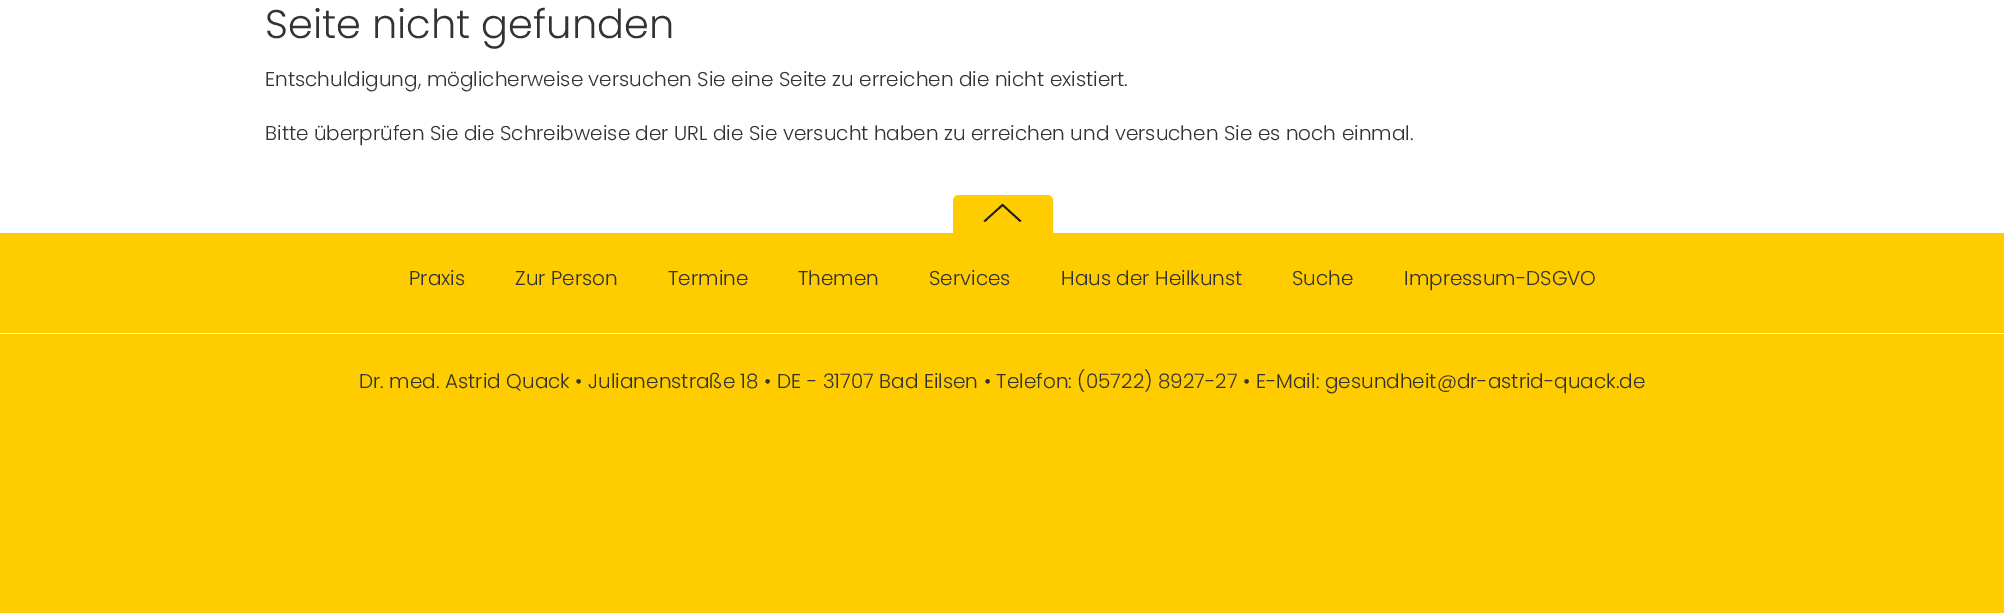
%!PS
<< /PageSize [2004 613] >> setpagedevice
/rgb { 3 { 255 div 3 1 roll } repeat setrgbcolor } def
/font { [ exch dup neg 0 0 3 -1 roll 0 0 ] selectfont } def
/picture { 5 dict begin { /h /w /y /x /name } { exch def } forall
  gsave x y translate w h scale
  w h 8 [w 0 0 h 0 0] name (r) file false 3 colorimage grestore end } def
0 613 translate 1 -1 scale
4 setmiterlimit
255 255 255 rgb
0 0 2004 613 rectfill
255 204 0 rgb
959 195 moveto 1047 195 lineto 1050.5 195 1053 197.5 1053 201 curveto 1053 233 lineto 953 233 lineto 953 201 lineto 953 197.5 955.5 195 959 195 curveto closepath fill
(img/1.rgb) 983 203 39 19 picture
0 233 2004 100 rectfill
0 334 2004 279 rectfill
/Poppins-Light 40 font
51 51 51 rgb
265 38 moveto (Seite nicht gefunden) show
/Poppins-Light 20 font
[
  [(Entschuldigung, möglicherweise versuchen Sie eine Seite zu erreichen die nicht existiert.) 265 86]
  [(Bitte überprüfen Sie die Schreibweise der URL die Sie versucht haben zu erreichen und versuchen Sie es noch einmal.) 265 140]
  [(Praxis) 409 285]
  [(Zur Person) 515 285]
  [(Termine) 668 285]
  [(Themen) 798 285]
  [(Services) 929 285]
  [(Haus der Heilkunst) 1061 285]
  [(Suche) 1292 285]
  [(Impressum-DSGVO) 1404 285]
  [(Dr. med. Astrid Quack • Julianenstraße 18 • DE - 31707 Bad Eilsen • Telefon: \(05722\) 8927-27 • E-Mail: gesundheit@dr-astrid-quack.de) 359 388]
] { aload pop moveto show } forall
showpage
